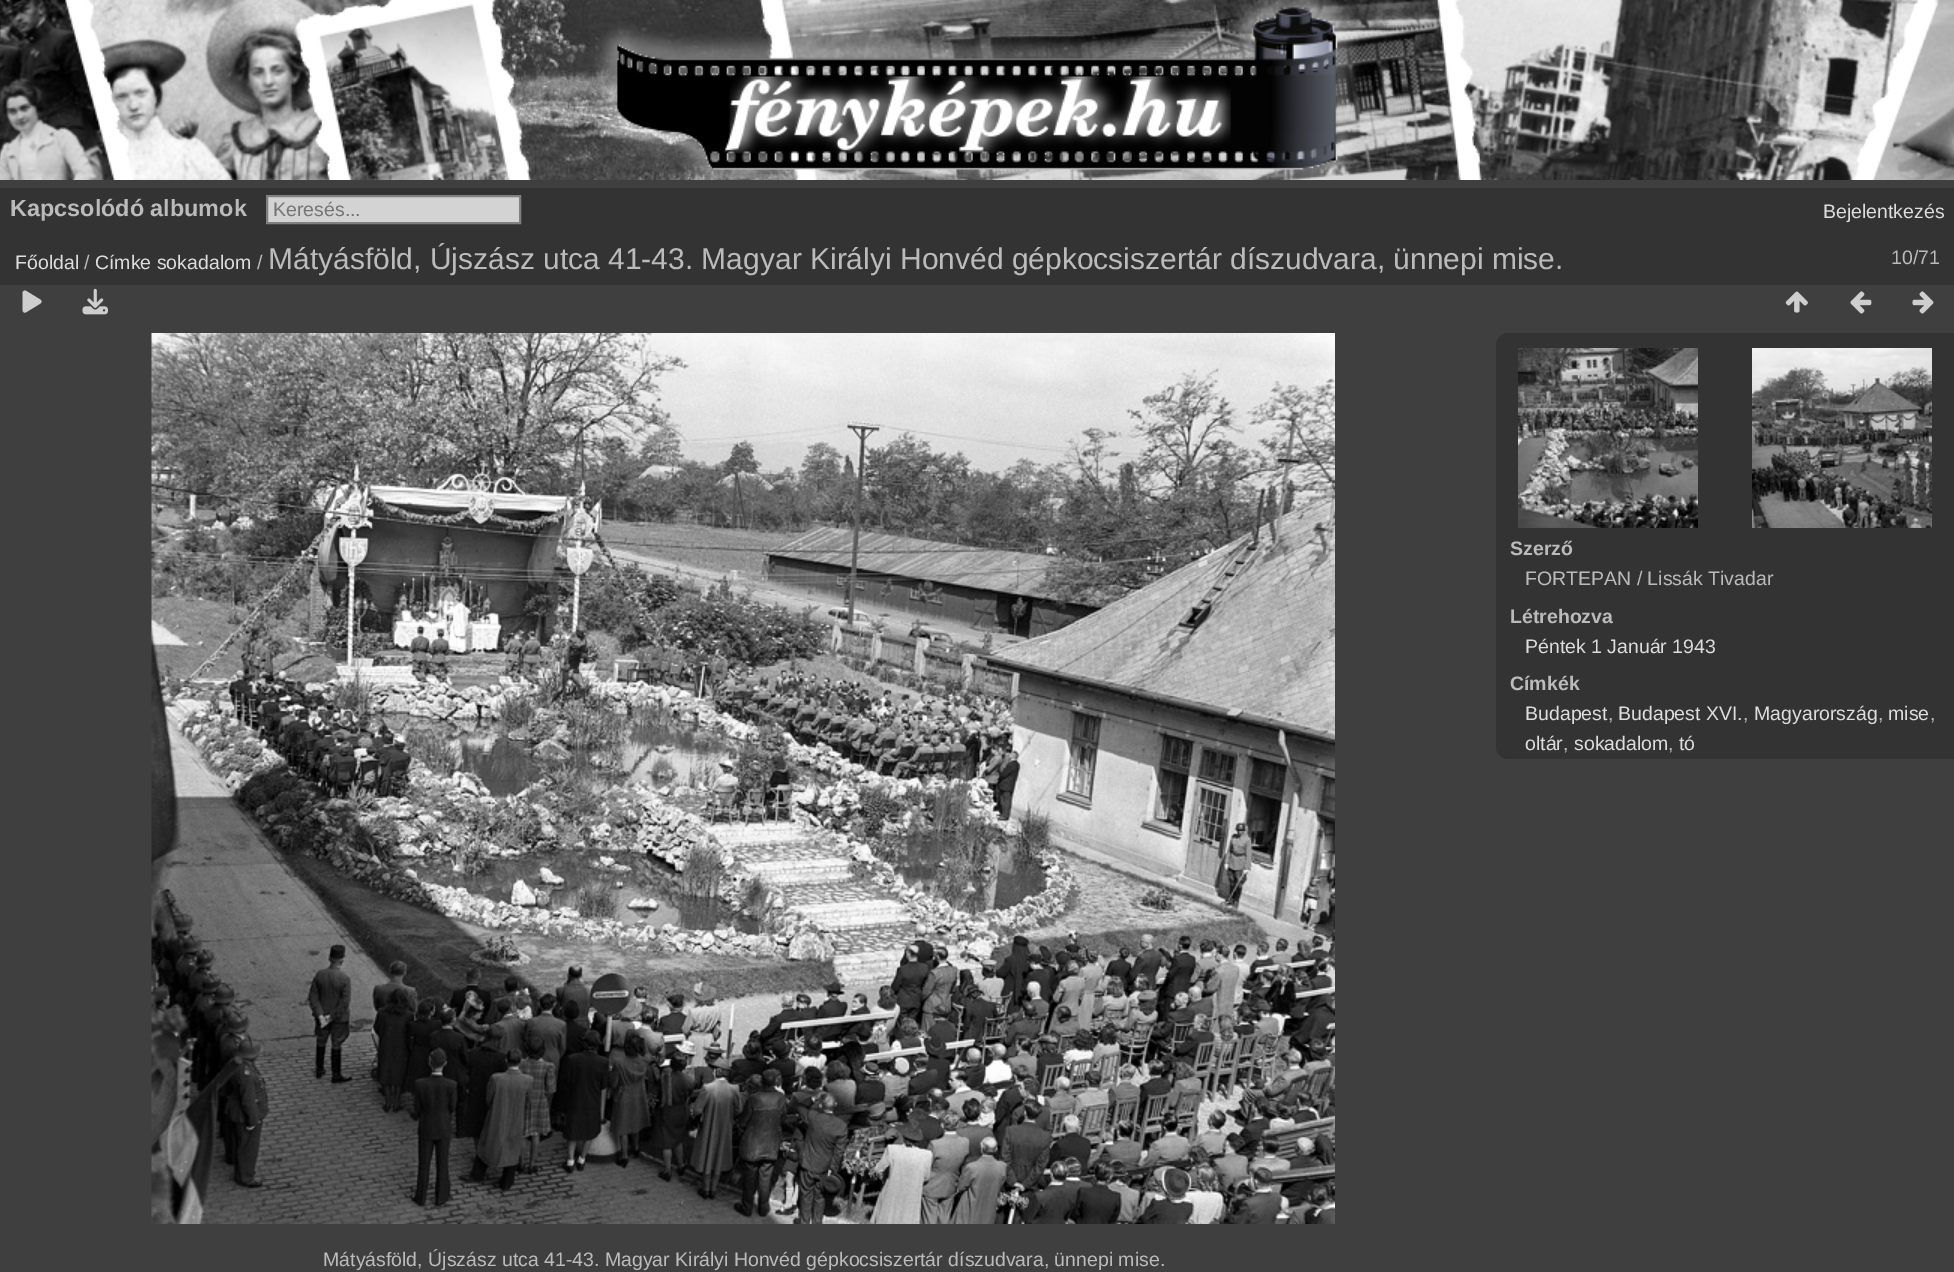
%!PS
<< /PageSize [1954 1272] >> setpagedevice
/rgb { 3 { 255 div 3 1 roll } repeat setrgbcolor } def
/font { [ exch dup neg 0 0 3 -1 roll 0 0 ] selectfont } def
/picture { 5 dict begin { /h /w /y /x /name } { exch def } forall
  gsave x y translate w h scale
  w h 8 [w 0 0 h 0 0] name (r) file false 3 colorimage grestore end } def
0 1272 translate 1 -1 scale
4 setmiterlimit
63 63 63 rgb
0 0 1954 1272 rectfill
212 212 212 rgb
132 166 1281 14 rectfill
(img/1.rgb) 0 0 1954 180 picture
51 51 51 rgb
0 188 1954 97 rectfill
211 211 211 rgb
267 196 moveto 520 196 lineto 520 223 lineto 267 223 lineto closepath gsave fill grestore
128 128 128 rgb
2 setlinewidth
stroke
(img/2.rgb) 22 290 20 23 picture
(img/3.rgb) 82 288 26 27 picture
(img/4.rgb) 1785 291 23 22 picture
(img/5.rgb) 1850 291 22 23 picture
(img/6.rgb) 1912 291 22 23 picture
51 51 51 rgb
1508 333 moveto 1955 333 lineto 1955 759 lineto 1508 759 lineto 1501.5 759 1496 753.5 1496 747 curveto 1496 345 lineto 1496 338.5 1501.5 333 1508 333 curveto closepath fill
(img/7.rgb) 1518 348 180 180 picture
(img/8.rgb) 1752 348 180 180 picture
(img/9.rgb) 151 333 1184 891 picture
/LiberationSans-Bold 23.4 font
187 187 187 rgb
10 216 moveto (Kapcsolódó albumok) show
/LiberationSans-Regular 19.5 font
117 117 117 rgb
273 216 moveto (Keresés...) show
221 221 221 rgb
1823 218 moveto (Bejelentkezés) show
15 269 moveto (Főoldal) show
187 187 187 rgb
84 269 moveto (/) show
221 221 221 rgb
95 269 moveto (Címke sokadalom) show
187 187 187 rgb
257 269 moveto (/) show
/LiberationSans-Regular 30 font
268 269 moveto (Mátyásföld, Újszász utca 41-43. Magyar Királyi Honvéd gépkocsiszertár díszudvara, ünnepi mise.) show
/LiberationSans-Regular 19.5 font
1891 264 moveto (10/71) show
/LiberationSans-Bold 19.5 font
1510 555 moveto (Szerző) show
/LiberationSans-Regular 19.5 font
1525 585 moveto (FORTEPAN / Lissák Tivadar) show
/LiberationSans-Bold 19.5 font
1510 623 moveto (Létrehozva) show
/LiberationSans-Regular 19.5 font
221 221 221 rgb
1525 653 moveto (Péntek 1 Január 1943) show
/LiberationSans-Bold 19.5 font
187 187 187 rgb
1510 690 moveto (Címkék) show
/LiberationSans-Regular 19.5 font
221 221 221 rgb
1525 720 moveto (Budapest) show
187 187 187 rgb
1608 720 moveto (,) show
221 221 221 rgb
1618 720 moveto (Budapest XVI.) show
187 187 187 rgb
1743 720 moveto (,) show
221 221 221 rgb
1754 720 moveto (Magyarország) show
187 187 187 rgb
1878 720 moveto (,) show
221 221 221 rgb
1888 720 moveto (mise) show
187 187 187 rgb
1930 720 moveto (,) show
221 221 221 rgb
1525 750 moveto (oltár) show
187 187 187 rgb
1563 750 moveto (,) show
221 221 221 rgb
1574 750 moveto (sokadalom) show
187 187 187 rgb
1668 750 moveto (,) show
221 221 221 rgb
1679 750 moveto (tó) show
187 187 187 rgb
323 1266 moveto (Mátyásföld, Újszász utca 41-43. Magyar Királyi Honvéd gépkocsiszertár díszudvara, ünnepi mise.) show
showpage
